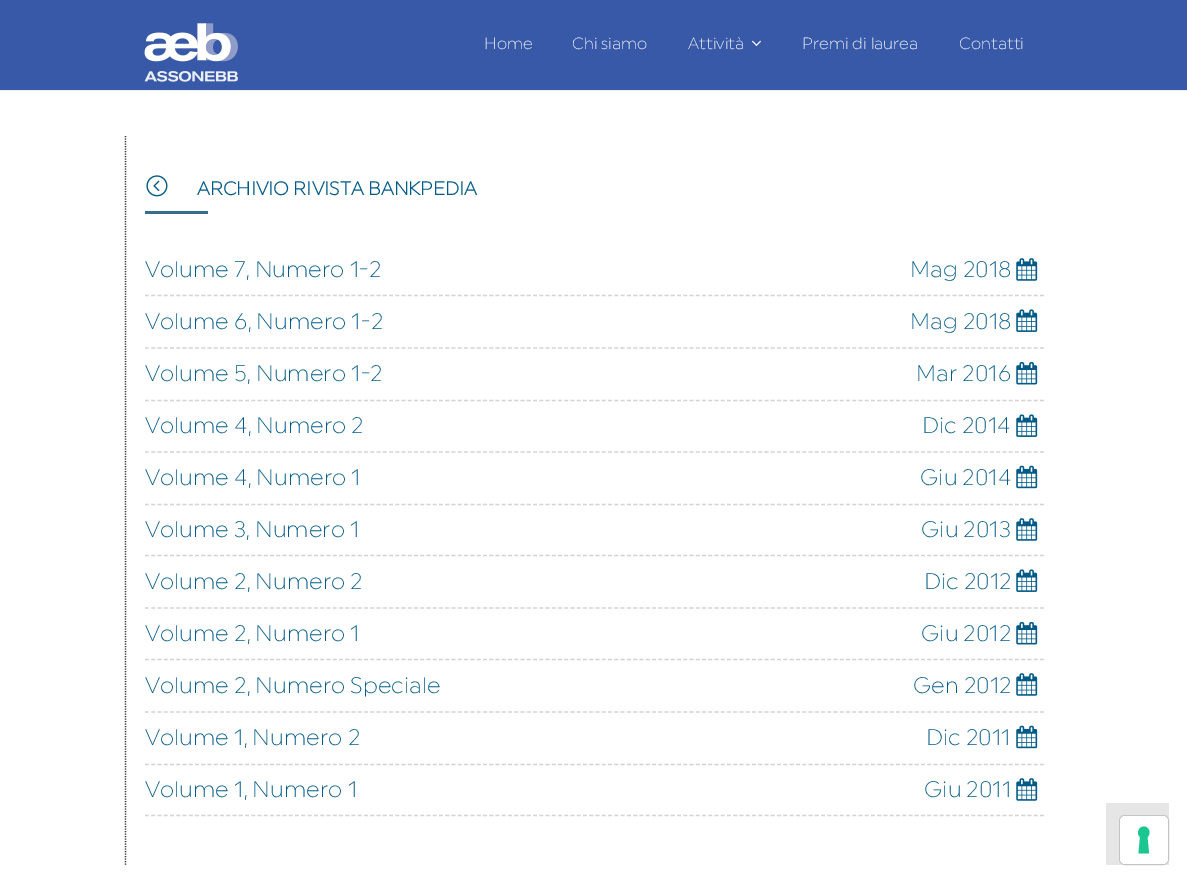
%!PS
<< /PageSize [1187 883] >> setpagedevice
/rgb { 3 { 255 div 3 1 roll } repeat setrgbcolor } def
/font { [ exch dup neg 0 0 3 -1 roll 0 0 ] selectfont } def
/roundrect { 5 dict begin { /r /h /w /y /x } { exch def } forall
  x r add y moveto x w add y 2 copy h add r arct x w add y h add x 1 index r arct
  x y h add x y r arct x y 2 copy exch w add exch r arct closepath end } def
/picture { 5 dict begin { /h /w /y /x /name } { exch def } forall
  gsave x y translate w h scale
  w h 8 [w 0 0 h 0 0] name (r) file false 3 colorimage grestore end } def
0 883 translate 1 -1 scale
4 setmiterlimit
255 255 255 rgb
0 0 1187 883 rectfill
56 89 168 rgb
0 0 1187 90 rectfill
238 238 238 rgb
0 90 1187 1 rectfill
(img/1.rgb) 144 23 94 59 picture
(img/2.rgb) 752 40 9 6 picture
51 51 51 rgb
1.2 setlinewidth
[1.25 1.25] 0 setdash
125.5 136 moveto 125.5 866 lineto stroke
(img/3.rgb) 146 175 22 22 picture
55 110 140 rgb
145 211 63 3 rectfill
211 211 211 rgb
[3.75 2.51] 0 setdash
145 295.5 moveto 1044 295.5 lineto stroke
(img/4.rgb) 1016 258 22 23 picture
145 348 moveto 1044 348 lineto stroke
(img/5.rgb) 1016 309 22 23 picture
145 400.5 moveto 1044 400.5 lineto stroke
(img/6.rgb) 1016 361 22 24 picture
145 452 moveto 1044 452 lineto stroke
(img/5.rgb) 1016 414 22 23 picture
145 504.5 moveto 1044 504.5 lineto stroke
(img/7.rgb) 1016 465 22 24 picture
145 555.5 moveto 1044 555.5 lineto stroke
(img/4.rgb) 1016 518 22 23 picture
145 608 moveto 1044 608 lineto stroke
(img/5.rgb) 1016 569 22 23 picture
145 659.5 moveto 1044 659.5 lineto stroke
(img/6.rgb) 1016 621 22 24 picture
145 712 moveto 1044 712 lineto stroke
(img/4.rgb) 1016 673 22 23 picture
145 764.5 moveto 1044 764.5 lineto stroke
(img/7.rgb) 1016 725 22 24 picture
145 815.5 moveto 1044 815.5 lineto stroke
(img/4.rgb) 1016 778 22 23 picture
230 230 230 rgb
1106 803 63 62 rectfill
196 196 196 rgb
1 setlinewidth
[] 0 setdash
1119.5 815.5 49 49 5.5 roundrect stroke
255 255 255 rgb
1120 816 48 48 5 roundrect fill
28 198 145 rgb
1144 826.5 moveto 1149 826.5 1151.5 833.5 1147.5 837 curveto 1149 853.5 lineto 1138.5 853.5 lineto 1140 837 lineto 1136 833.5 1138.5 826.5 1144 826.5 curveto closepath eofill
/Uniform-Regular 16.25 font
255 255 255 rgb
[
  [(Home) 484 49]
  [(Chi siamo) 572 49]
  [(Attività) 688 49]
  [(Premi di laurea) 802 49]
  [(Contatti) 959 49]
] { aload pop moveto show } forall
/Uniform-Bold 18.75 font
0 90 135 rgb
197 195 moveto (ARCHIVIO RIVISTA BANKPEDIA) show
/Uniform-Regular 22.5 font
[
  [(Volume 7, Numero 1-2) 145 277]
  [(Mag 2018) 910 277]
  [(Volume 6, Numero 1-2) 145 329]
  [(Mag 2018) 910 329]
  [(Volume 5, Numero 1-2) 145 381]
  [(Mar 2016) 916 381]
  [(Volume 4, Numero 2) 145 433]
  [(Dic 2014) 922 433]
  [(Volume 4, Numero 1) 145 485]
  [(Giu 2014) 920 485]
  [(Volume 3, Numero 1) 145 537]
  [(Giu 2013) 921 537]
  [(Volume 2, Numero 2) 145 589]
  [(Dic 2012) 924 589]
  [(Volume 2, Numero 1) 145 641]
  [(Giu 2012) 921 641]
  [(Volume 2, Numero Speciale) 145 693]
  [(Gen 2012) 913 693]
  [(Volume 1, Numero 2) 145 745]
  [(Dic 2011) 926 745]
  [(Volume 1, Numero 1) 145 797]
  [(Giu 2011) 924 797]
] { aload pop moveto show } forall
showpage
